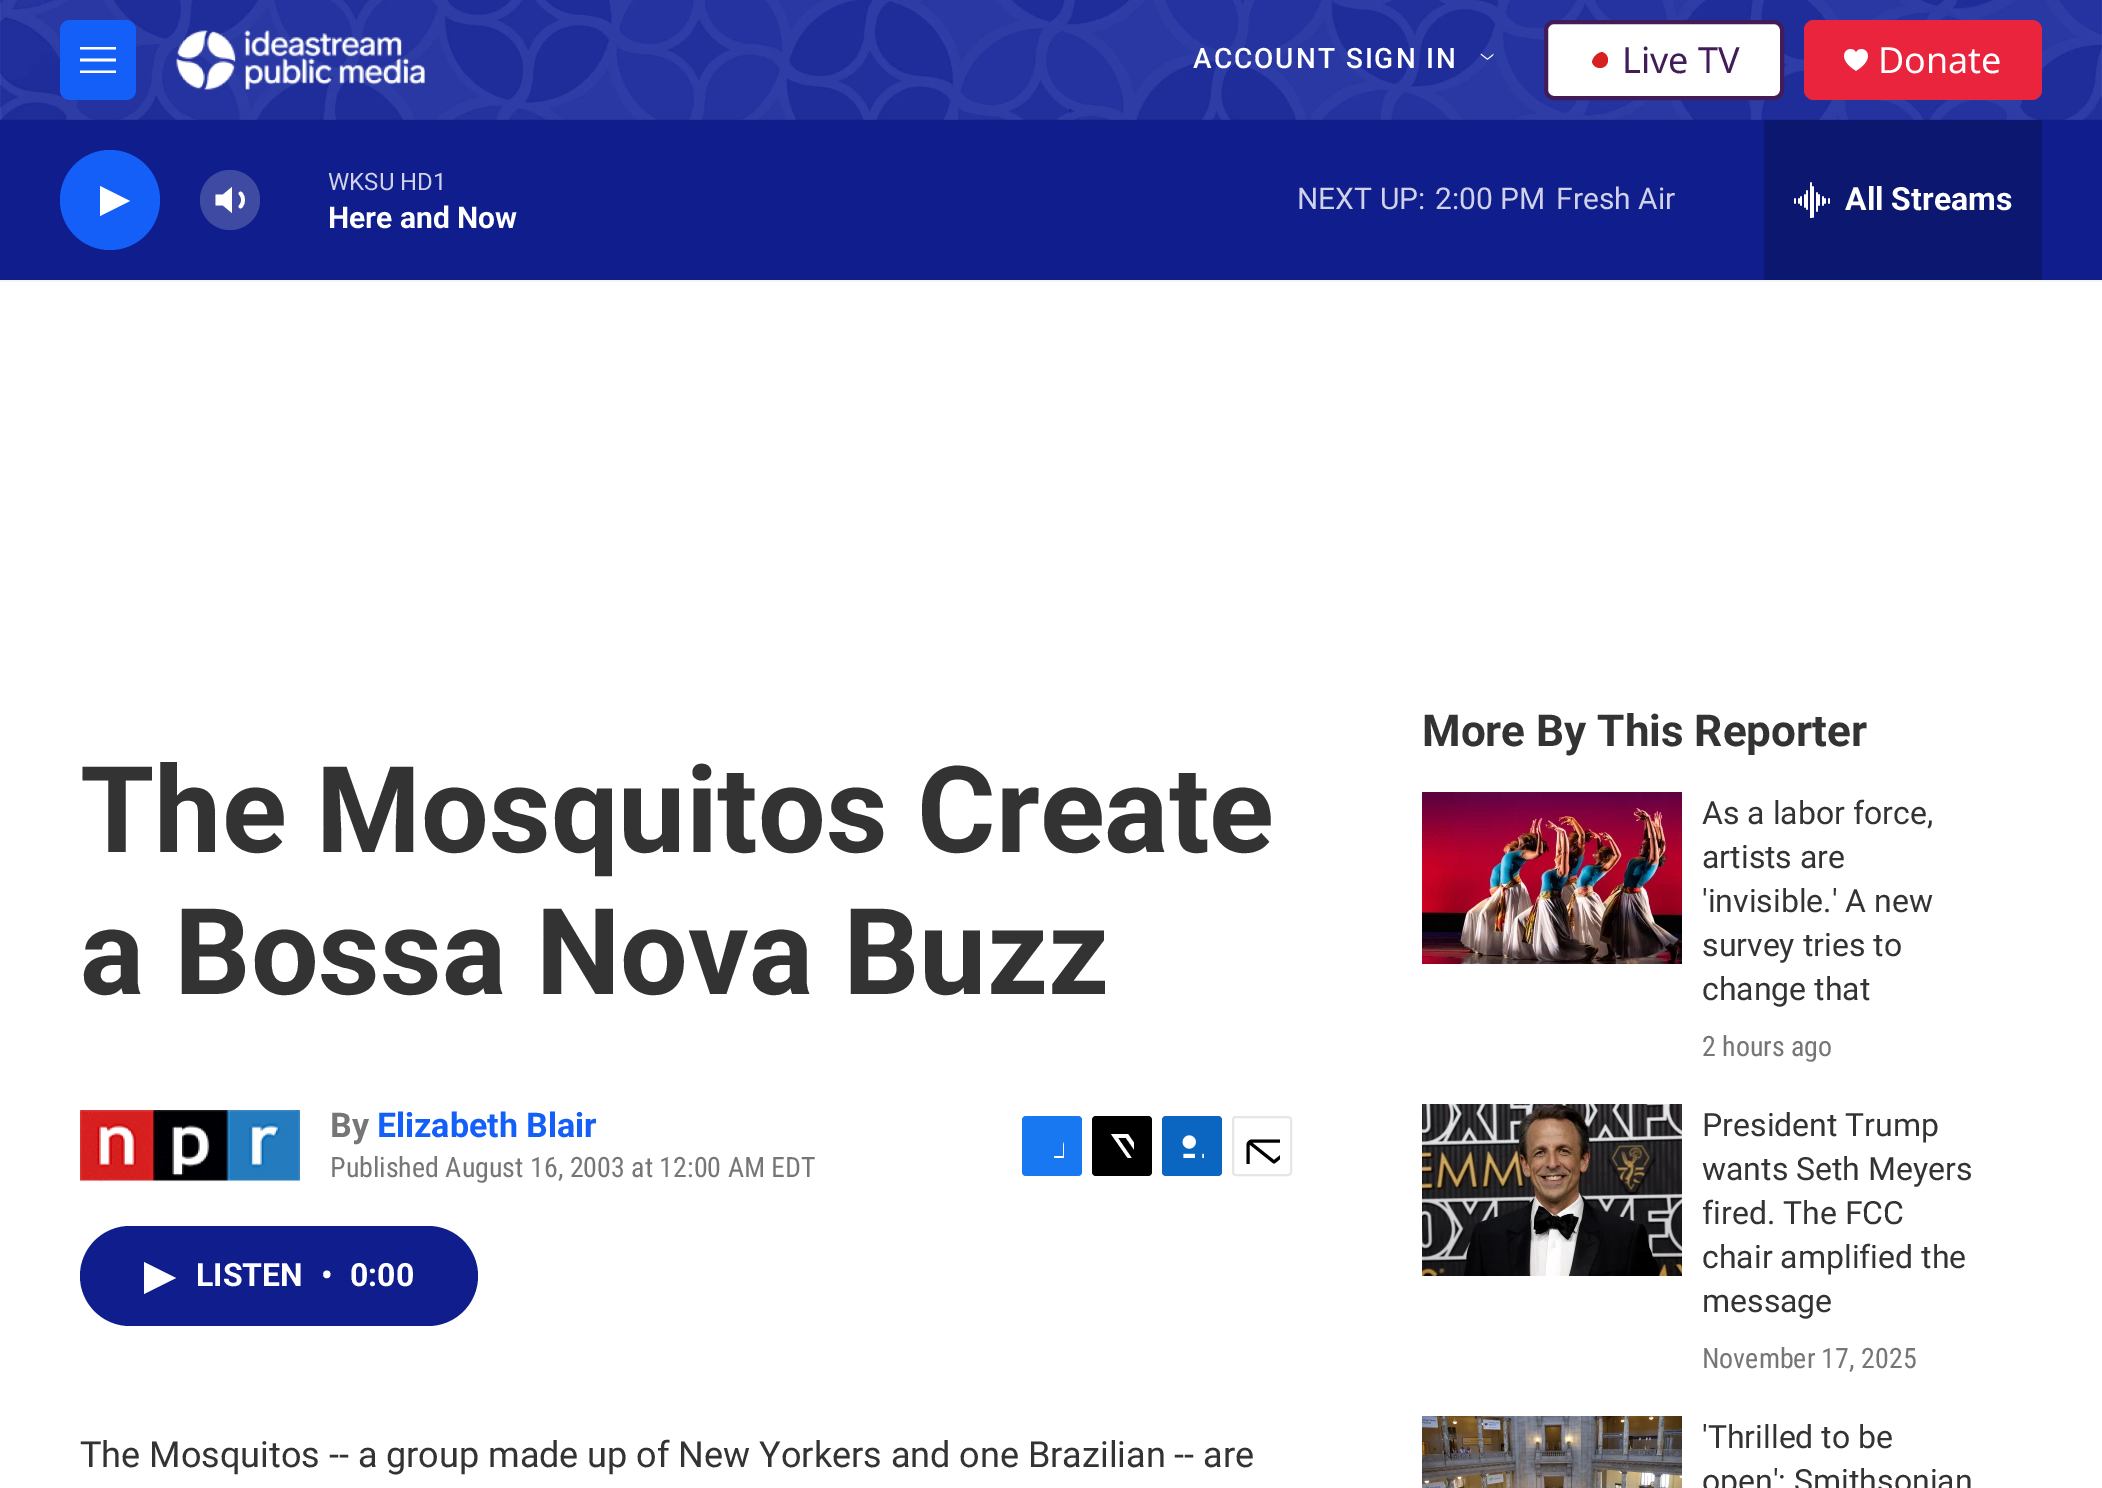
%!PS
<< /PageSize [2102 1488] /PageUsesTransparency true >> setpagedevice
/rgb { 3 { 255 div 3 1 roll } repeat setrgbcolor } def
/font { [ exch dup neg 0 0 3 -1 roll 0 0 ] selectfont } def
/alpha { dup .setfillconstantalpha .setstrokeconstantalpha } def
/circle { newpath 0 360 arc closepath } def
/roundrect { 5 dict begin { /r /h /w /y /x } { exch def } forall
  x r add y moveto x w add y 2 copy h add r arct x w add y h add x 1 index r arct
  x y h add x y r arct x y 2 copy exch w add exch r arct closepath end } def
/picture { 5 dict begin { /h /w /y /x /name } { exch def } forall
  gsave x y translate w h scale
  w h 8 [w 0 0 h 0 0] name (r) file false 3 colorimage grestore end } def
0 .pushpdf14devicefilter
0 1488 translate 1 -1 scale
4 setmiterlimit
255 255 255 rgb
0 0 2102 1488 rectfill
245 245 245 rgb
0 280 2102 2 rectfill
(img/1.rgb) 0 0 2102 120 picture
20 95 248 rgb
60 20 76 80 10 roundrect fill
255 255 255 rgb
80 61.5 moveto 80 58.5 lineto 116 58.5 lineto 116 61.5 lineto closepath 80 49.5 moveto 80 47 lineto 116 47 lineto 116 49.5 lineto closepath 80 73 moveto 80 70.5 lineto 116 70.5 lineto 116 73 lineto closepath eofill
(img/2.rgb) 176 30 249 60 picture
(img/3.rgb) 1480 53 14 7 picture
1546 22 236 76 8 roundrect gsave fill grestore
65 28 88 rgb
4 setlinewidth
stroke
214 32 33 rgb
1602 52 moveto 1605.5 53 1608 56 1608 60 curveto 1608 64.5 1604.5 68 1600 68 curveto 1596 68 1593 65.5 1592 62 curveto 1593 57 1597 53 1602 52 curveto closepath fill
234 36 60 rgb
1804 20 238 80 10 roundrect fill
(img/4.rgb) 1844 49 24 22 picture
15 30 140 rgb
0 120 2102 160 rectfill
20 95 248 rgb
110 200 50 circle fill
255 255 255 rgb
100 186 moveto 130 201 lineto 100 216 lineto closepath fill
232 187 moveto 223 194.5 lineto 215.5 194.5 lineto 215.5 205.5 lineto 223 205.5 lineto 232 213 lineto closepath fill
3.7 setlinewidth
1 setlinecap
1 setlinejoin
240.5 193.5 moveto 244 197 244 203 240.5 206.5 curveto stroke
0.2 alpha
230 200 30 circle fill
1 alpha
12 24 112 rgb
1764 120 278 160 rectfill
(img/5.rgb) 1794 182 36 36 picture
(img/6.rgb) 80 1110 220 72 picture
23 120 242 rgb
1022 1116 60 60 4 roundrect fill
gsave
1040 1134 24 24 rectclip
255 255 255 rgb
1073 1176 moveto 1063 1176 lineto 1063 1166 lineto 1054 1166 lineto 1054 1156 lineto 1063 1156 lineto 1063 1145 lineto 1065 1136 1074 1134 1082 1135 curveto 1082 1144 lineto 1071 1144 1073 1147 1073 1156 curveto 1082 1156 lineto 1082 1161 lineto 1081 1166 lineto 1073 1166 lineto closepath fill
grestore
0 0 0 rgb
1092 1116 60 60 4 roundrect fill
gsave
1110 1134 24 24 rectclip
255 255 255 rgb
1146 1159 moveto 1152 1168 lineto 1152 1170 1153 1173 1151 1174 curveto 1126 1138 lineto 1118 1138 lineto 1144 1176 lineto 1139 1176 lineto 1136 1171 lineto 1132 1176 lineto 1126 1176 lineto 1134 1167 lineto 1111 1134 lineto 1128 1134 lineto 1143 1156 lineto 1152 1146 lineto 1152 1152 lineto closepath fill
grestore
10 102 193 rgb
1162 1116 60 60 4 roundrect fill
(img/7.rgb) 1182 1135 22 23 picture
230 230 230 rgb
2 setlinewidth
0 setlinecap
0 setlinejoin
1233 1117 58 58 3 roundrect stroke
gsave
1244 1128 36 36 rectclip
0 0 0 rgb
3 setlinewidth
1 setlinecap
1 setlinejoin
1300 1172 moveto 1300 1174 1298 1175.5 1296 1175.5 curveto 1252 1175.5 lineto 1250 1175.5 1248 1174 1248 1172 curveto 1248 1145 lineto 1248 1143 1250 1141 1252 1141 curveto 1296 1141 lineto 1298 1141 1300 1143 1300 1145 curveto closepath 1298.5 1142.5 moveto 1274 1162 lineto 1249.5 1142.5 lineto stroke
grestore
15 30 140 rgb
80 1226 398 100 50 roundrect fill
255 255 255 rgb
144 1262 moveto 176 1278 lineto 144 1294 lineto closepath fill
(img/8.rgb) 1422 792 260 172 picture
(img/9.rgb) 1422 1104 260 172 picture
(img/10.rgb) 1422 1416 260 72 picture
/Roboto-Medium 28 font
1193 68 moveto 2 0 (ACCOUNT SIGN IN) ashow
/NotoSans-Regular 36 font
65 28 88 rgb
1622 73 moveto (Live TV) show
255 255 255 rgb
1878 73 moveto (Donate) show
/Roboto-Regular 24 font
207 210 232 rgb
328 190 moveto (WKSU HD1) show
/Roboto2-Bold 30 font
255 255 255 rgb
328 228 moveto (Here and Now) show
/Roboto-Regular 30 font
207 210 232 rgb
[
  [(NEXT UP:) 1297 209]
  [(2:00 PM) 1435 209]
  [(Fresh Air) 1556 209]
] { aload pop moveto show } forall
/Roboto2-Bold 32 font
255 255 255 rgb
1845 210 moveto (All Streams) show
/Roboto-Bold 120 font
51 51 51 rgb
80 852 moveto (The Mosquitos Create) show
80 994 moveto (a Bossa Nova Buzz) show
/Roboto-Bold 34 font
118 118 118 rgb
330 1137 moveto (By) show
20 95 248 rgb
377 1137 moveto (Elizabeth Blair) show
/RobotoCondensed-Regular 28 font
118 118 118 rgb
330 1177 moveto (Published August 16, 2003 at 12:00 AM EDT) show
/Roboto2-Bold 32 font
255 255 255 rgb
[
  [(LISTEN) 196 1286]
  [(•) 321 1286]
  [(0:00) 350 1286]
] { aload pop moveto show } forall
/Roboto-Regular 36 font
51 51 51 rgb
80 1467 moveto (The Mosquitos -- a group made up of New Yorkers and one Brazilian -- are) show
/Roboto-Bold 44 font
1422 746 moveto (More By This Reporter) show
/Roboto-Regular 32 font
[
  [(As a labor force,) 1702 824]
  [(artists are) 1702 868]
  [('invisible.' A new) 1702 912]
  [(survey tries to) 1702 956]
  [(change that) 1702 1000]
] { aload pop moveto show } forall
/RobotoCondensed-Regular 28 font
118 118 118 rgb
1702 1056 moveto (2 hours ago) show
/Roboto-Regular 32 font
51 51 51 rgb
[
  [(President Trump) 1702 1136]
  [(wants Seth Meyers) 1702 1180]
  [(fired. The FCC) 1702 1224]
  [(chair amplified the) 1702 1268]
  [(message) 1702 1312]
] { aload pop moveto show } forall
/RobotoCondensed-Regular 28 font
118 118 118 rgb
1702 1368 moveto (November 17, 2025) show
/Roboto-Regular 32 font
51 51 51 rgb
1702 1448 moveto ('Thrilled to be) show
1702 1492 moveto (open': Smithsonian) show
.poppdf14devicefilter showpage
